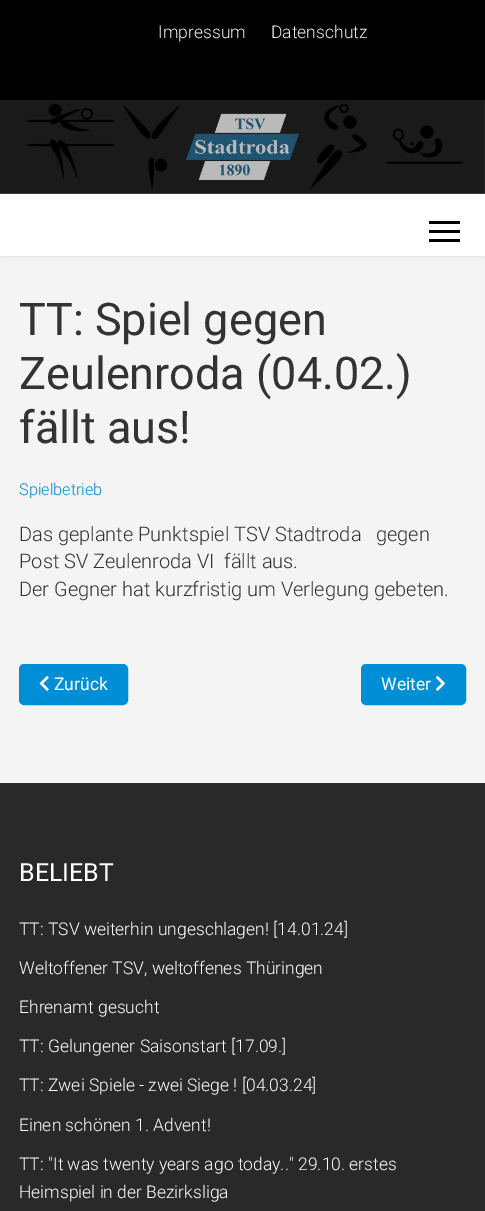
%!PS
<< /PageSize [485 1211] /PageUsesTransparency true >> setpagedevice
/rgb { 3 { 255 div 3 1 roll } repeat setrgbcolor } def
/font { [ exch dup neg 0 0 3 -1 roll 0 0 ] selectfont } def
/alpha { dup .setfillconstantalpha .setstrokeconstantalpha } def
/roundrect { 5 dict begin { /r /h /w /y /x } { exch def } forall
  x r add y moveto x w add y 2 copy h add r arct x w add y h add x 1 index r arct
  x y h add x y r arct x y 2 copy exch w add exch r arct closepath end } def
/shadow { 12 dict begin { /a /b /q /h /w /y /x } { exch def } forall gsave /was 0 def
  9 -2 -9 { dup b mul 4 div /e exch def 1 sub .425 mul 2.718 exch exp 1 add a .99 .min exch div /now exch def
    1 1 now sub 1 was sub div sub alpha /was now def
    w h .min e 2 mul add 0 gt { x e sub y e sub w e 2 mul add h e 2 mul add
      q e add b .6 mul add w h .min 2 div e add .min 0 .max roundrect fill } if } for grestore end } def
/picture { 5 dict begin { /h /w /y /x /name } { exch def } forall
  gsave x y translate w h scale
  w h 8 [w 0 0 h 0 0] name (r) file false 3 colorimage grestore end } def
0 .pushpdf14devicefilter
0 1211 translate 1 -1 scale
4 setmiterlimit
244 244 244 rgb
0 0 485 1211 rectfill
0 0 0 rgb
0 0 485 100 rectfill
(img/1.rgb) 0 100 485 94 picture
0 194 485 62 0 2.5 0.1 shadow
[
  [0 194 485 62 255 255 255]
  [429 221 31 3 0 0 0]
  [429 230 31 3 0 0 0]
  [429 239 31 3 0 0 0]
] { aload pop rgb rectfill } forall
0 142 214 rgb
19.5 664.5 108 40 4.5 roundrect gsave fill grestore
stroke
(img/2.rgb) 39 676 10 15 picture
361.5 664.5 104 40 4.5 roundrect gsave fill grestore
stroke
(img/3.rgb) 436 676 9 15 picture
41 41 41 rgb
0 783 485 428 rectfill
/Roboto-Light 17.5 font
238 238 238 rgb
158 38 moveto (Impressum) show
271 38 moveto (Datenschutz) show
/Roboto-Regular 45 font
51 51 51 rgb
[
  [(TT: Spiel gegen) 19 335]
  [(Zeulenroda \(04.02.\)) 19 389]
  [(fällt aus!) 19 443]
] { aload pop moveto show } forall
/Roboto-Light 16.25 font
0 142 214 rgb
19 495 moveto (Spielbetrieb) show
/Roboto-Light 20 font
51 51 51 rgb
[
  [(Das geplante Punktspiel TSV Stadtroda   gegen) 19 541]
  [(Post SV Zeulenroda VI  fällt aus.) 19 568]
  [(Der Gegner hat kurzfristig um Verlegung gebeten.) 19 596]
] { aload pop moveto show } forall
/Roboto-Regular 17.5 font
255 255 255 rgb
54 690 moveto (Zurück) show
381 690 moveto (Weiter) show
/Roboto-Regular 25 font
19 881 moveto (BELIEBT) show
/Roboto-Light 17.5 font
[
  [(TT: TSV weiterhin ungeschlagen! [14.01.24]) 19 935]
  [(Weltoffener TSV, weltoffenes Thüringen) 19 974]
  [(Ehrenamt gesucht) 19 1013]
  [(TT: Gelungener Saisonstart [17.09.]) 19 1052]
  [(TT: Zwei Spiele - zwei Siege ! [04.03.24]) 19 1091]
  [(Einen schönen 1. Advent!) 19 1131]
  [(TT: "It was twenty years ago today.." 29.10. erstes) 19 1170]
  [(Heimspiel in der Bezirksliga) 19 1198]
] { aload pop moveto show } forall
.poppdf14devicefilter showpage
